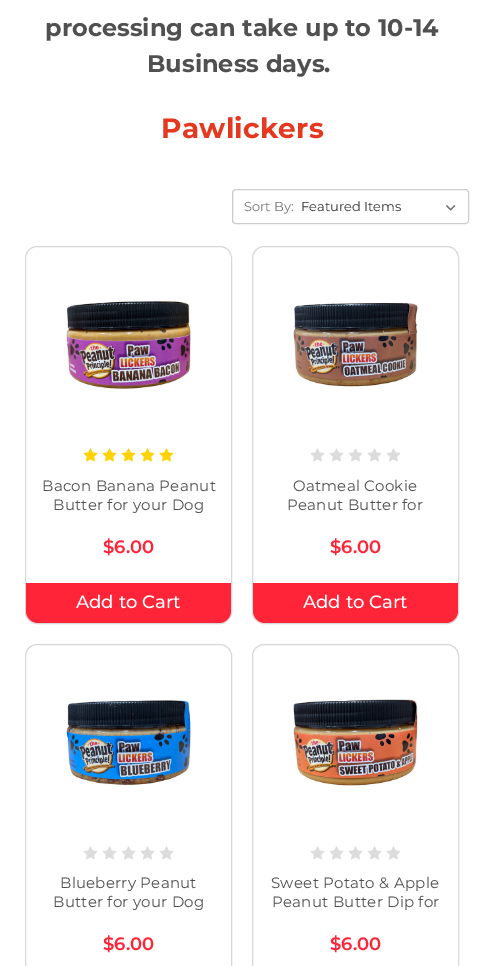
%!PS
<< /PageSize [484 966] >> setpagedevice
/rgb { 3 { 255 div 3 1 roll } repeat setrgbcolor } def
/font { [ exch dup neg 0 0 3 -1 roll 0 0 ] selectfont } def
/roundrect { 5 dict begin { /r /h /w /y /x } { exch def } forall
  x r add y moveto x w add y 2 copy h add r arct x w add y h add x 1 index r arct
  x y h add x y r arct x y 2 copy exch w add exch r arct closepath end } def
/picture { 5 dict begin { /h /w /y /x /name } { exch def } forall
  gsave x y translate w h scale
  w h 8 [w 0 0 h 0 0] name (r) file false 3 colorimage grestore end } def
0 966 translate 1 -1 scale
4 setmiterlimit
255 255 255 rgb
0 0 484 966 rectfill
204 204 204 rgb
232.5 189.5 236 34 3.5 roundrect stroke
255 255 255 rgb
298 191 170 32 4 roundrect fill
(img/1.rgb) 446 205 10 6 picture
216 216 216 rgb
25.5 246.5 206 377 11.5 roundrect stroke
(img/2.rgb) 66 301 125 88 picture
(img/3.rgb) 83 448 15 14 picture
(img/3.rgb) 102 448 15 14 picture
(img/3.rgb) 121 448 15 14 picture
(img/3.rgb) 140 448 15 14 picture
(img/3.rgb) 159 448 15 14 picture
255 36 56 rgb
26 583 moveto 231 583 lineto 231 611 lineto 231 617.5 225.5 623 219 623 curveto 38 623 lineto 31.5 623 26 617.5 26 611 curveto closepath fill
216 216 216 rgb
252.5 246.5 206 377 11.5 roundrect stroke
(img/4.rgb) 293 302 125 85 picture
(img/5.rgb) 310 448 15 14 picture
(img/5.rgb) 329 448 15 14 picture
(img/5.rgb) 348 448 15 14 picture
(img/5.rgb) 367 448 15 14 picture
(img/5.rgb) 386 448 15 14 picture
255 36 56 rgb
253 583 moveto 458 583 lineto 458 611 lineto 458 617.5 452.5 623 446 623 curveto 265 623 lineto 258.5 623 253 617.5 253 611 curveto closepath fill
216 216 216 rgb
25.5 644.5 206 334 11.5 roundrect stroke
(img/6.rgb) 66 700 125 85 picture
(img/5.rgb) 83 846 15 14 picture
(img/5.rgb) 102 846 15 14 picture
(img/5.rgb) 121 846 15 14 picture
(img/5.rgb) 140 846 15 14 picture
(img/5.rgb) 159 846 15 14 picture
252.5 644.5 206 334 11.5 roundrect stroke
(img/7.rgb) 293 699 125 87 picture
(img/5.rgb) 310 846 15 14 picture
(img/5.rgb) 329 846 15 14 picture
(img/5.rgb) 348 846 15 14 picture
(img/5.rgb) 367 846 15 14 picture
(img/5.rgb) 386 846 15 14 picture
/Montserrat-Bold 24 font
80 80 80 rgb
45 36 moveto (processing can take up to 10-14) show
147 72 moveto (Business days.) show
/Montserrat-Bold 28 font
229 56 32 rgb
161 138 moveto 0.25 0 (Pawlickers) ashow
/Montserrat-Regular 13 font
117 117 117 rgb
244 211 moveto (Sort By:) show
51 51 51 rgb
301 211 moveto (Featured Items) show
/Montserrat-Regular 15 font
80 80 80 rgb
42 491 moveto 0.25 0 (Bacon Banana Peanut) ashow
53 510 moveto 0.25 0 (Butter for your Dog) ashow
/Montserrat-SemiBold 18 font
255 36 56 rgb
103 553 moveto ($6.00) show
/Montserrat-Medium 18 font
255 255 255 rgb
76 608 moveto (Add to Cart) show
/Montserrat-Regular 15 font
80 80 80 rgb
293 491 moveto 0.25 0 (Oatmeal Cookie) ashow
287 510 moveto 0.25 0 (Peanut Butter for) ashow
/Montserrat-SemiBold 18 font
255 36 56 rgb
330 553 moveto ($6.00) show
/Montserrat-Medium 18 font
255 255 255 rgb
303 608 moveto (Add to Cart) show
/Montserrat-Regular 15 font
80 80 80 rgb
60 888 moveto 0.25 0 (Blueberry Peanut) ashow
53 907 moveto 0.25 0 (Butter for your Dog) ashow
/Montserrat-SemiBold 18 font
255 36 56 rgb
103 950 moveto ($6.00) show
/Montserrat-Regular 15 font
80 80 80 rgb
271 888 moveto 0.25 0 (Sweet Potato & Apple) ashow
272 907 moveto 0.25 0 (Peanut Butter Dip for) ashow
/Montserrat-SemiBold 18 font
255 36 56 rgb
330 950 moveto ($6.00) show
showpage
